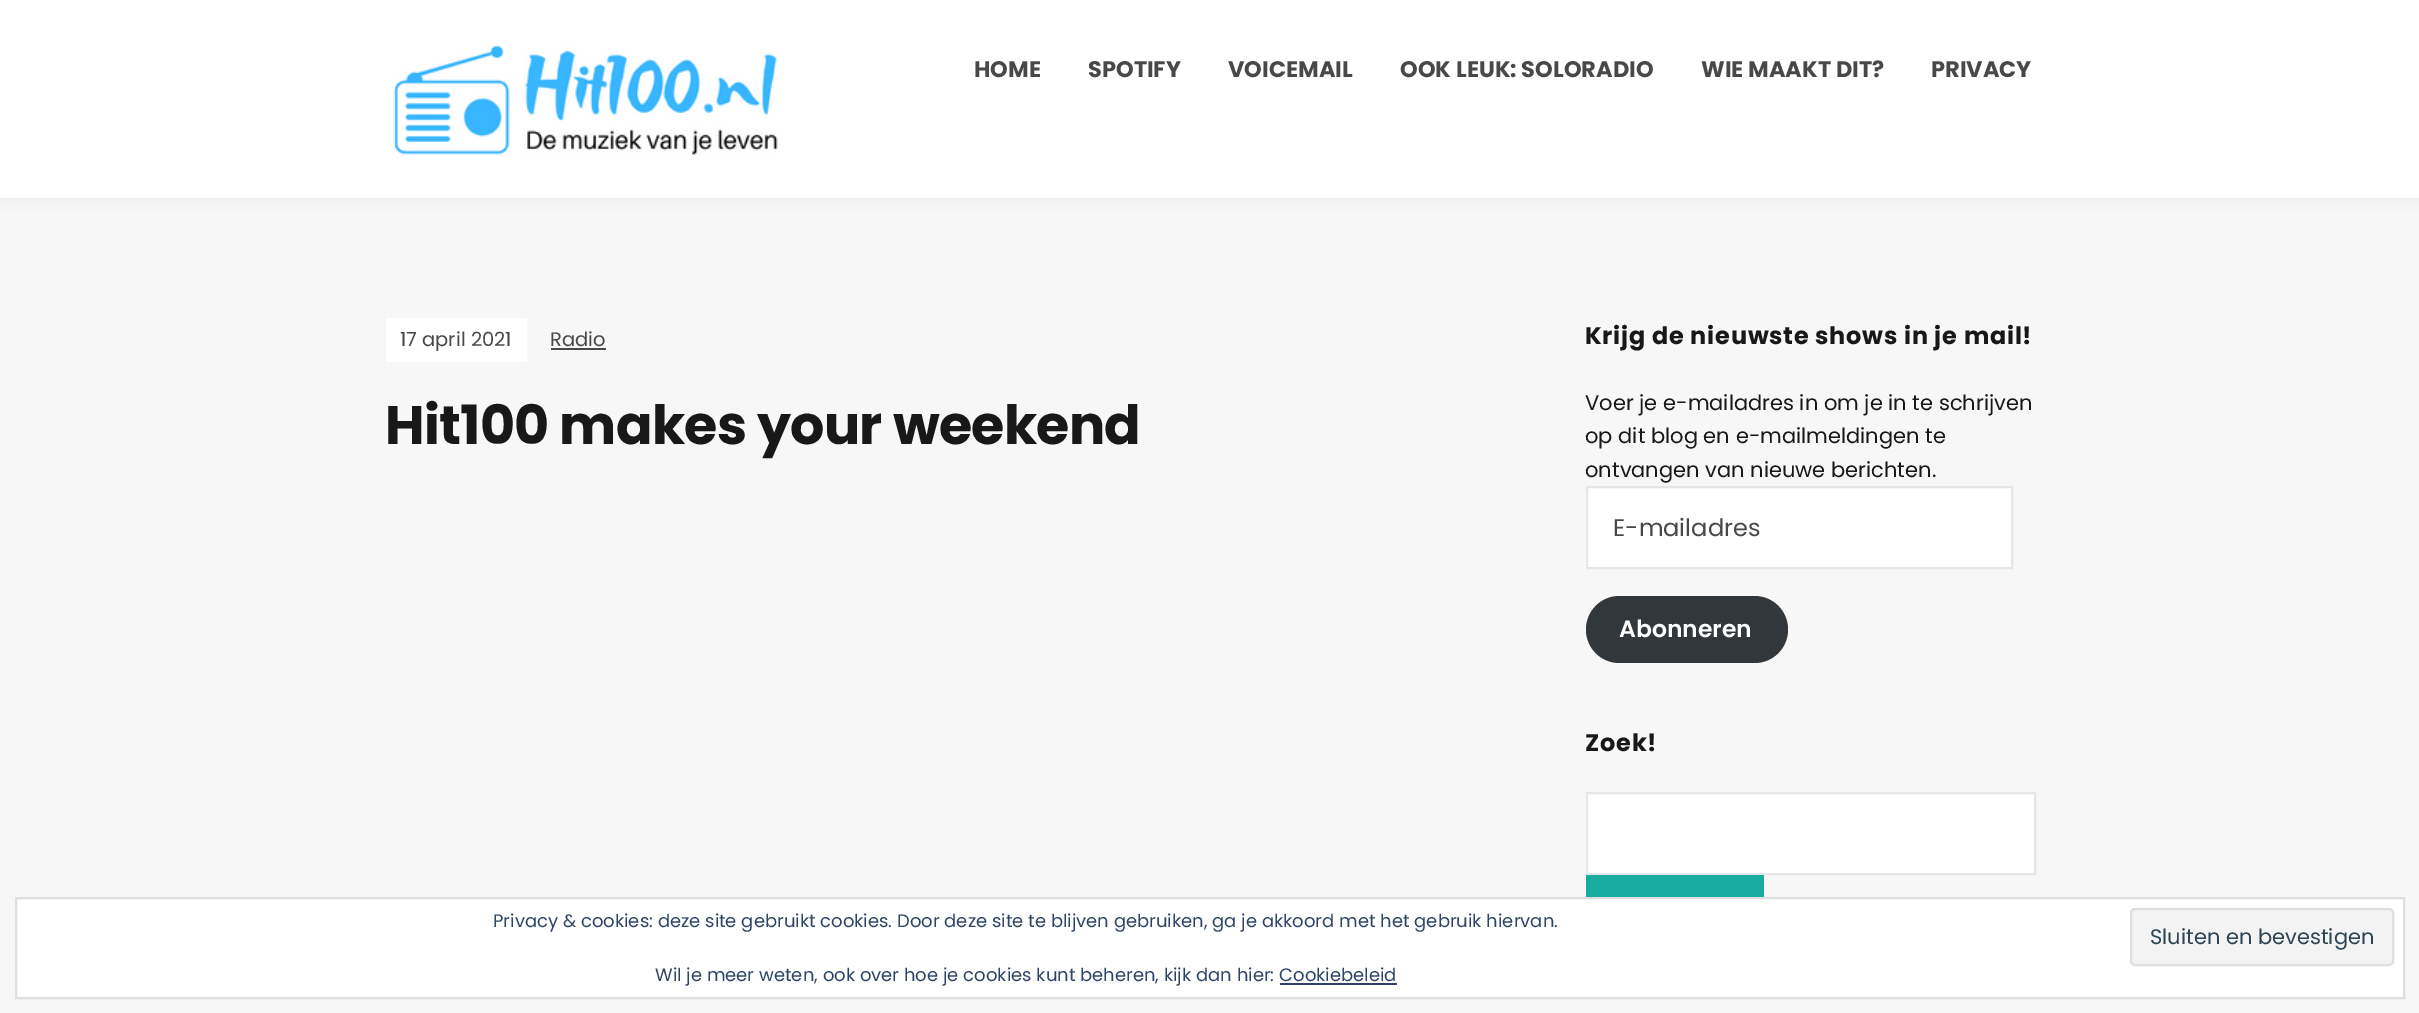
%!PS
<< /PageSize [2419 1013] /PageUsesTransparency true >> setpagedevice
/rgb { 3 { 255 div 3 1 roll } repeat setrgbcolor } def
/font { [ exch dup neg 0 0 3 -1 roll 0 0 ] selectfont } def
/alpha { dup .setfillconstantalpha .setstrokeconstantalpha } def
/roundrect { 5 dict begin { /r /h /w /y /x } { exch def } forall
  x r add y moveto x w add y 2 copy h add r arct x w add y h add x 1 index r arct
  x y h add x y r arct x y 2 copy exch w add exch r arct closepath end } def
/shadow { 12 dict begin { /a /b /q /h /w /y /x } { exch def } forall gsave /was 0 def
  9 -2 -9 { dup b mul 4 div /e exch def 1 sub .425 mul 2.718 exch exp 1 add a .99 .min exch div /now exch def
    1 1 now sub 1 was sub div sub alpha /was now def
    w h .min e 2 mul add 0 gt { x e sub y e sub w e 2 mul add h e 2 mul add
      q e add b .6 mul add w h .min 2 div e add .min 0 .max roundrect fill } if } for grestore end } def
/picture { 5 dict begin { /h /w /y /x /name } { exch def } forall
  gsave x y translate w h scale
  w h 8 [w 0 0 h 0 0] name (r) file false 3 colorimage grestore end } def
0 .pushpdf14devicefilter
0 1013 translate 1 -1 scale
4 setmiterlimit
247 247 247 rgb
0 0 2419 1013 rectfill
0 0 0 rgb
0 0 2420 198 0 6 0.07 shadow
255 255 255 rgb
0 0 2419 198 rectfill
(img/1.rgb) 393 45 385 110 picture
386 318 141 44 rectfill
72 72 72 rgb
551 348 55 2 rectfill
255 255 255 rgb
1587 487 moveto 2012 487 lineto 2012 568 lineto 1587 568 lineto closepath gsave fill grestore
230 230 230 rgb
2 setlinewidth
stroke
50 55 60 rgb
1586 596 202 67 33.5 roundrect fill
255 255 255 rgb
1587 793 moveto 2035 793 lineto 2035 874 lineto 1587 874 lineto closepath gsave fill grestore
230 230 230 rgb
stroke
24 171 159 rgb
1586 875 178 22 rectfill
255 255 255 rgb
16 898 moveto 2404 898 lineto 2404 998 lineto 16 998 lineto closepath gsave fill grestore
222 222 222 rgb
stroke
243 243 243 rgb
2131 909 262 56 4 roundrect gsave fill grestore
222 222 222 rgb
stroke
46 68 103 rgb
1280 983 117 2 rectfill
/Poppins-Bold 22.5 font
72 72 72 rgb
[
  [(HOME) 974 77]
  [(SPOTIFY) 1088 77]
  [(VOICEMAIL) 1228 77]
  [(OOK LEUK: SOLORADIO) 1400 77]
  [(WIE MAAKT DIT?) 1701 77]
  [(PRIVACY) 1931 77]
] { aload pop moveto show } forall
/Poppins-Regular 19.5 font
400 346 moveto (17 april 2021) show
550 346 moveto (Radio) show
/Poppins-Bold 54 font
24 24 24 rgb
385 444 moveto -0.75 0 (Hit100 makes your weekend) ashow
/Poppins-Bold 24 font
1585 344 moveto 0.75 0 (Krijg de nieuwste shows in je mail!) ashow
/Poppins-Regular 21 font
[
  [(Voer je e-mailadres in om je in te schrijven) 1585 410]
  [(op dit blog en e-mailmeldingen te) 1585 443]
  [(ontvangen van nieuwe berichten.) 1585 477]
] { aload pop moveto show } forall
/Poppins-Regular 24 font
72 72 72 rgb
1613 536 moveto (E-mailadres) show
/Poppins-SemiBold 23.5 font
255 255 255 rgb
1619 637 moveto (Abonneren) show
/Poppins-Bold 24 font
24 24 24 rgb
1585 751 moveto 0.75 0 (Zoek!) ashow
/Poppins-Regular 18 font
46 68 103 rgb
493 927 moveto (Privacy & cookies: deze site gebruikt cookies. Door deze site te blijven gebruiken, ga je akkoord met het gebruik hiervan.) show
/Poppins-Regular 21 font
46 68 83 rgb
2150 944 moveto (Sluiten en bevestigen) show
/Poppins-Regular 18 font
46 68 103 rgb
655 981 moveto (Wil je meer weten, ook over hoe je cookies kunt beheren, kijk dan hier: Cookiebeleid) show
.poppdf14devicefilter showpage
